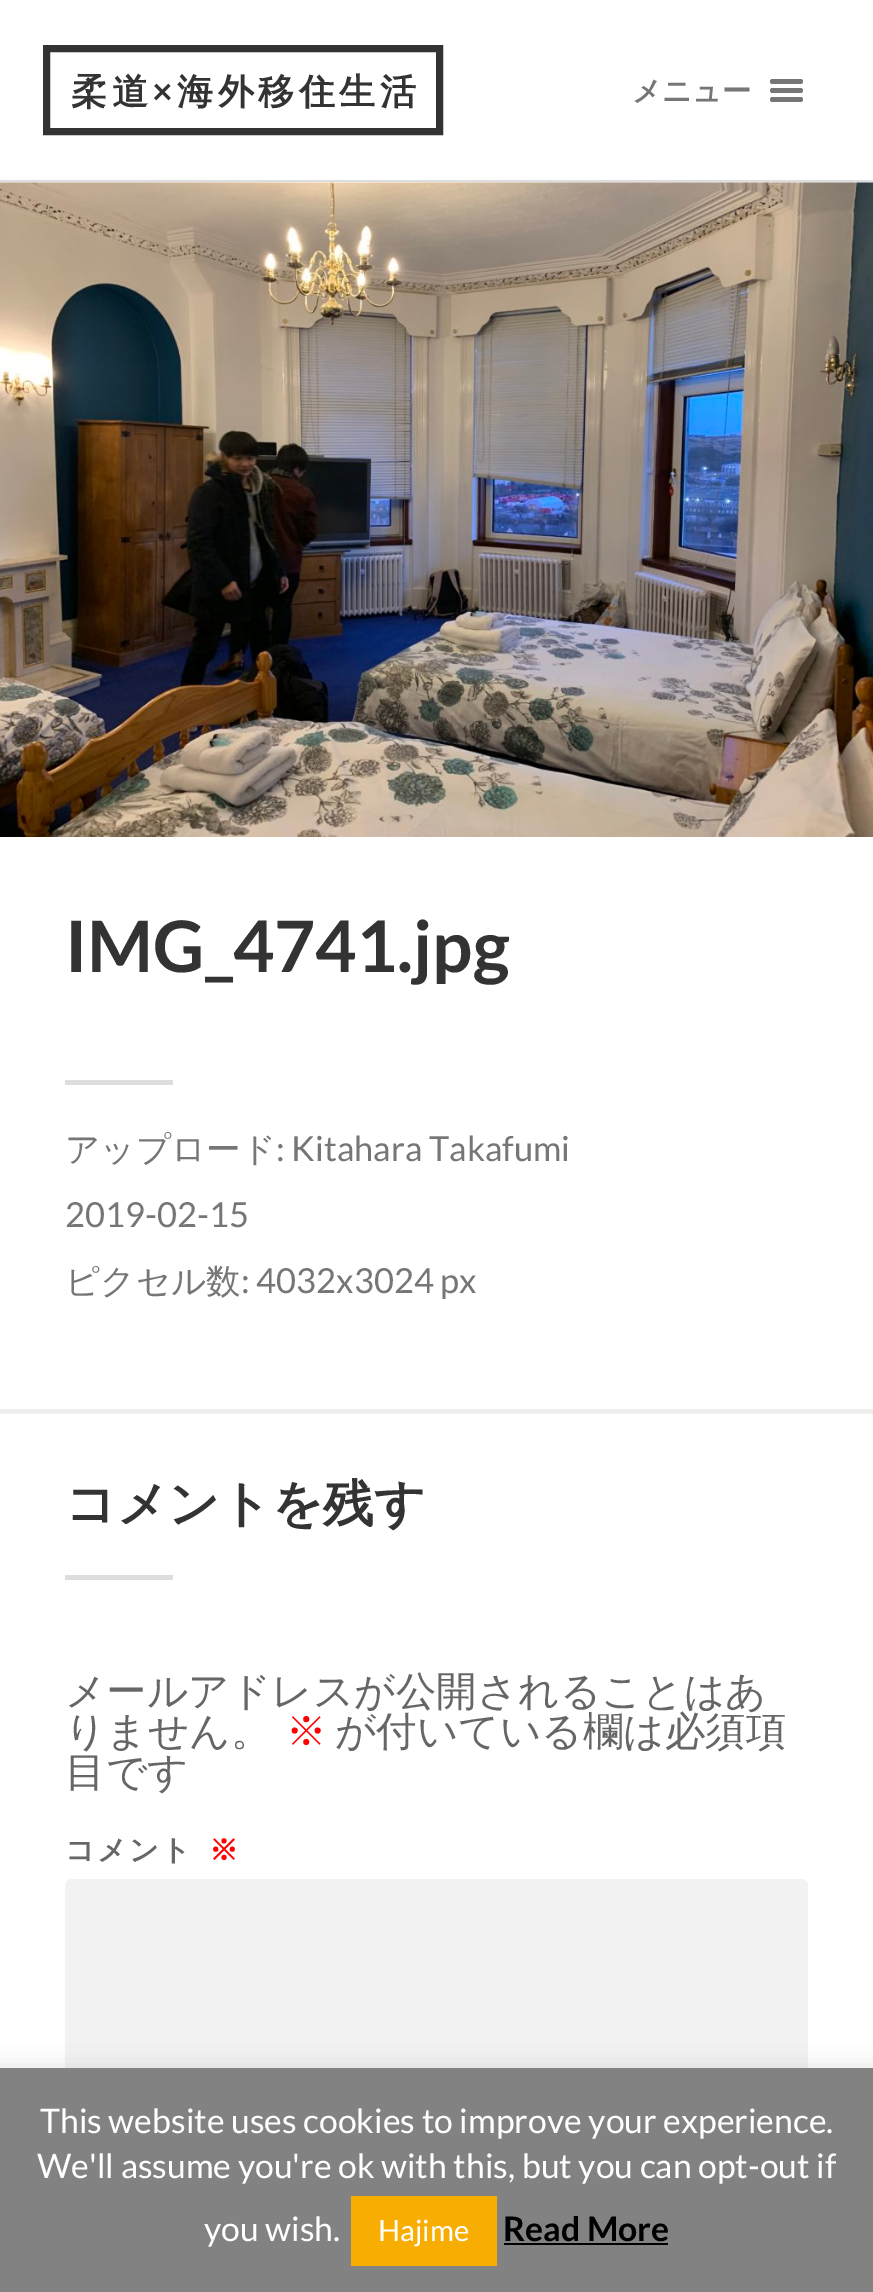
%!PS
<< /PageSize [873 2292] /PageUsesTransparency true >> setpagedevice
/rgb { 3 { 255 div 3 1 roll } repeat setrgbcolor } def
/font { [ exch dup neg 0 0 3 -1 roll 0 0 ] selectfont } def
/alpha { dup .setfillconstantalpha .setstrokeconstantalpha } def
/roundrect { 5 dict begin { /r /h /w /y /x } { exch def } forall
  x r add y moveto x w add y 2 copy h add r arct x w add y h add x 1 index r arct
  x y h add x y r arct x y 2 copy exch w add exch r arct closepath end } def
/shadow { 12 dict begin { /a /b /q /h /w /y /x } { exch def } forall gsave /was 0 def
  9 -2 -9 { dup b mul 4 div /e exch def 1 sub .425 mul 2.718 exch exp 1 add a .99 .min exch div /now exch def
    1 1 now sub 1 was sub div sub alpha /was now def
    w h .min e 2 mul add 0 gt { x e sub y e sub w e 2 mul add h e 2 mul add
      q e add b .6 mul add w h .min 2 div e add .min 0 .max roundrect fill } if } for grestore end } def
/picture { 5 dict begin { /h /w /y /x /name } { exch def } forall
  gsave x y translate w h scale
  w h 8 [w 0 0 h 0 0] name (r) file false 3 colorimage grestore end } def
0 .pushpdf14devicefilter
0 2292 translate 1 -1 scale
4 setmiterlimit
255 255 255 rgb
0 0 873 2292 rectfill
221 221 221 rgb
0 180 873 2 rectfill
51 51 51 rgb
7 setlinewidth
46.5 48.5 393 83 rectstroke
118 118 118 rgb
770 79 33 5 2.5 roundrect fill
770 88 33 5 2.5 roundrect fill
770 97 33 5 2.5 roundrect fill
(img/1.rgb) 0 182 873 655 picture
[
  [65 1080 108 5 221 221 221]
  [0 1409 873 5 238 238 238]
  [65 1575 108 5 221 221 221]
] { aload pop rgb rectfill } forall
242 242 242 rgb
65 1879 743 405 7 roundrect fill
172 171 171 rgb
0 2066 873 225 0 11 0.3 shadow
[
  [0 2068 873 224 130 130 130]
  [351 2196 146 70 247 173 2]
  [504 2243 164 2 0 0 0]
] { aload pop rgb rectfill } forall
/WenQuanYiZenHei-Bold 36 font
51 51 51 rgb
71 104 moveto 4.5 0 (柔道) ashow
/Lato-Bold 36 font
152 104 moveto 4.5 0 (×) ashow
/WenQuanYiZenHei-Bold 36 font
177 104 moveto 4.5 0 (海外移住生活) ashow
/WenQuanYiZenHei-Bold 29.25 font
118 118 118 rgb
632 101 moveto (メニュー) show
/Lato-Bold 71 font
51 51 51 rgb
65 972 moveto (IMG_4741.jpg) show
/WenQuanYiZenHei-Medium 34.5 font
118 118 118 rgb
65 1161 moveto (アップロード) show
/Lato-Regular 34.5 font
276 1161 moveto (: Kitahara Takafumi) show
65 1227 moveto (2019-02-15) show
/WenQuanYiZenHei-Medium 34.5 font
65 1293 moveto (ピクセル数) show
/Lato-Regular 34.5 font
241 1293 moveto (: 4032x3024 px) show
/WenQuanYiZenHei-Bold 50.5 font
51 51 51 rgb
65 1521 moveto (コメントを残す) show
/WenQuanYiZenHei-Medium 40.5 font
102 102 102 rgb
65 1705 moveto (メールアドレスが公開されることはあ) show
65 1745 moveto (りません。) show
255 0 0 rgb
286 1745 moveto (※) show
102 102 102 rgb
335 1745 moveto (が付いている欄は必須項) show
65 1786 moveto (目です) show
/WenQuanYiZenHei-Bold 29.25 font
65 1860 moveto 2 0 (コメント) ashow
255 0 0 rgb
209 1860 moveto 2 0 (※) ashow
/Lato-Regular 33.75 font
255 255 255 rgb
[
  [(This website uses cookies to improve your experience.) 40 2133]
  [(We'll assume you're ok with this, but you can opt-out if) 37 2178]
  [(you wish.) 204 2241]
] { aload pop moveto show } forall
/Lato-Regular 29.25 font
378 2241 moveto (Hajime) show
/Lato-Bold 33.75 font
0 0 0 rgb
503 2241 moveto (Read More) show
.poppdf14devicefilter showpage
